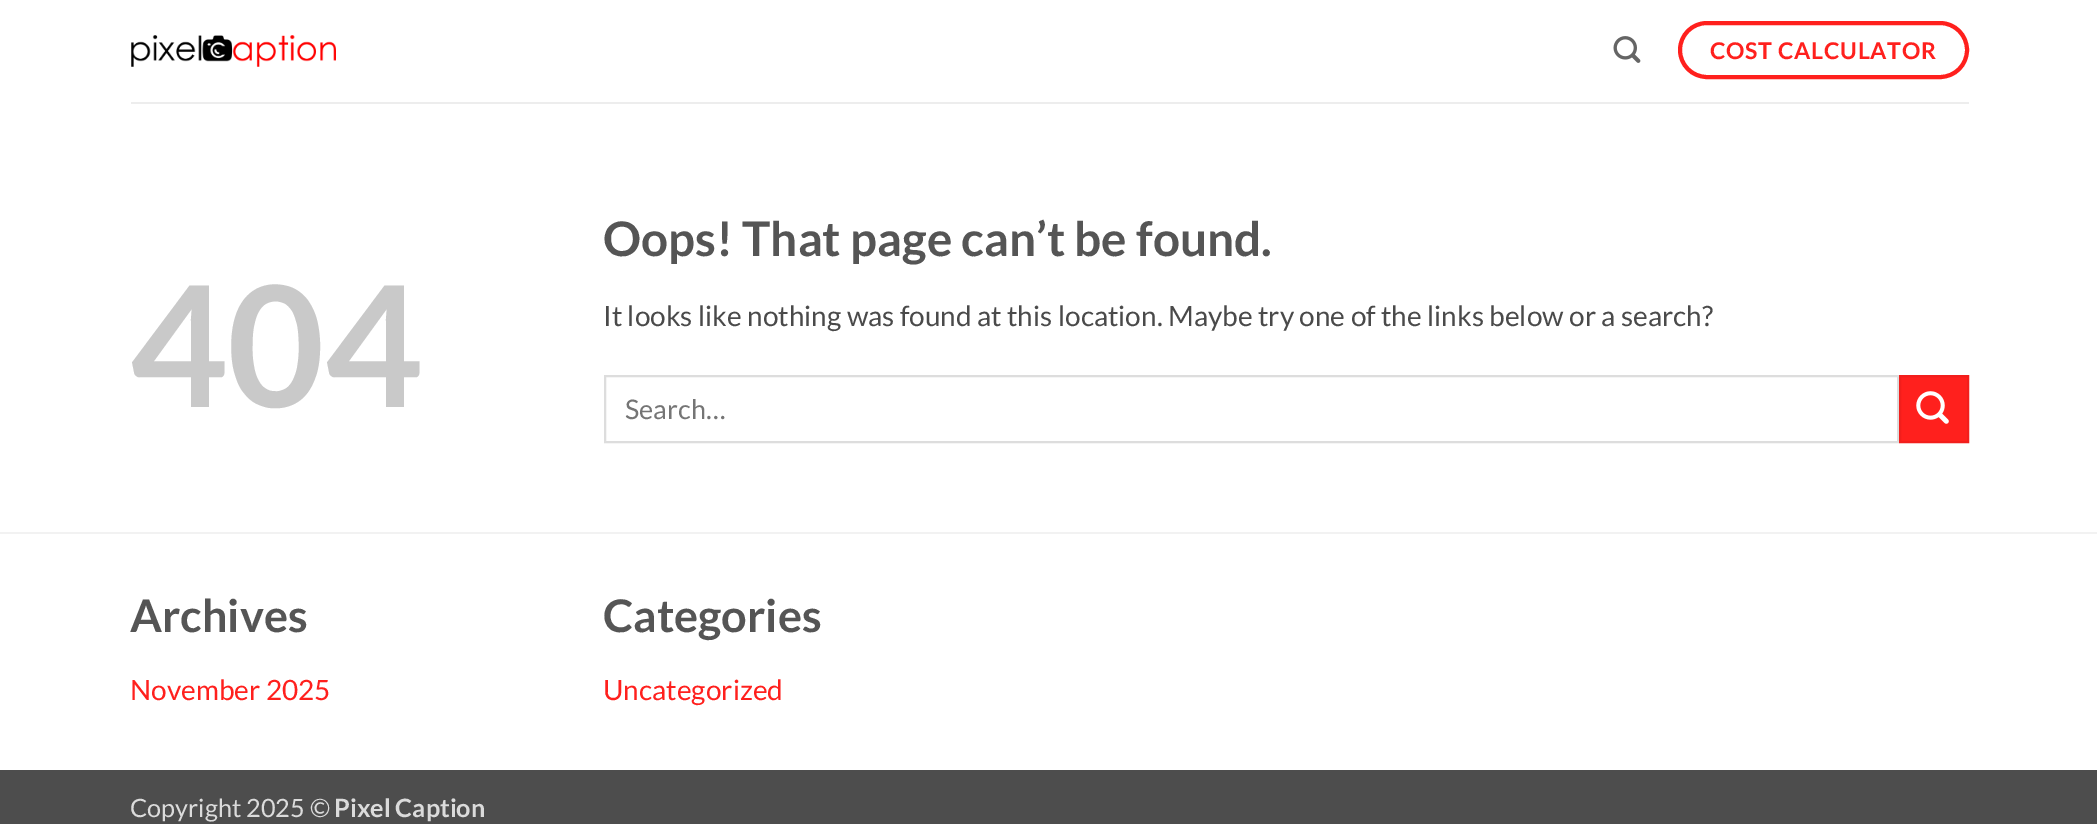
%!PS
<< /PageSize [2097 824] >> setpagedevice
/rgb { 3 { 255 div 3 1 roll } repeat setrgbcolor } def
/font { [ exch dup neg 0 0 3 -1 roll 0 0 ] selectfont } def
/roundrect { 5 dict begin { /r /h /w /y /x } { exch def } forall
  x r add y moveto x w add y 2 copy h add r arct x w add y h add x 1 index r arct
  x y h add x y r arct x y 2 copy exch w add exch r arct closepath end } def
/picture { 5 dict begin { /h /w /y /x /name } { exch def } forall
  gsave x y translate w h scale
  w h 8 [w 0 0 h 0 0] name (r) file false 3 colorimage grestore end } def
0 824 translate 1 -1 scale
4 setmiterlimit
255 255 255 rgb
0 0 2097 824 rectfill
(img/1.rgb) 131 35 205 32 picture
(img/2.rgb) 1613 36 28 27 picture
255 32 29 rgb
4 setlinewidth
1680 23 287 54 27 roundrect stroke
237 237 237 rgb
131 102 1838 2 rectfill
221 221 221 rgb
2 setlinewidth
605 376 1293 66 rectstroke
255 32 29 rgb
1900 376 moveto 1968 376 lineto 1968 442 lineto 1900 442 lineto closepath gsave fill grestore
242 30 28 rgb
stroke
(img/3.rgb) 1916 391 33 33 picture
242 242 242 rgb
0 532 2097 2 rectfill
77 77 77 rgb
0 770 2097 54 rectfill
/Lato-Bold 23 font
255 32 29 rgb
1710 59 moveto 0.75 0 (COST CALCULATOR) ashow
/Lato-Bold 168 font
201 201 201 rgb
130 407 moveto (404) show
/Lato-Bold 47.6 font
85 85 85 rgb
603 256 moveto (Oops! That page can’t be found.) show
/Lato-Regular 28 font
74 74 74 rgb
603 326 moveto (It looks like nothing was found at this location. Maybe try one of the links below or a search?) show
/Lato-Regular 27 font
117 117 117 rgb
625 419 moveto (Search…) show
/Lato-Bold 45 font
85 85 85 rgb
130 632 moveto (Archives) show
/Lato-Regular 28 font
255 32 29 rgb
130 700 moveto (November 2025) show
/Lato-Bold 45 font
85 85 85 rgb
603 632 moveto (Categories) show
/Lato-Regular 28 font
255 32 29 rgb
603 700 moveto (Uncategorized) show
/Lato-Regular 25.25 font
219 219 219 rgb
130 817 moveto (Copyright 2025 ©) show
/Lato-Bold 25.25 font
334 817 moveto (Pixel Caption) show
showpage
